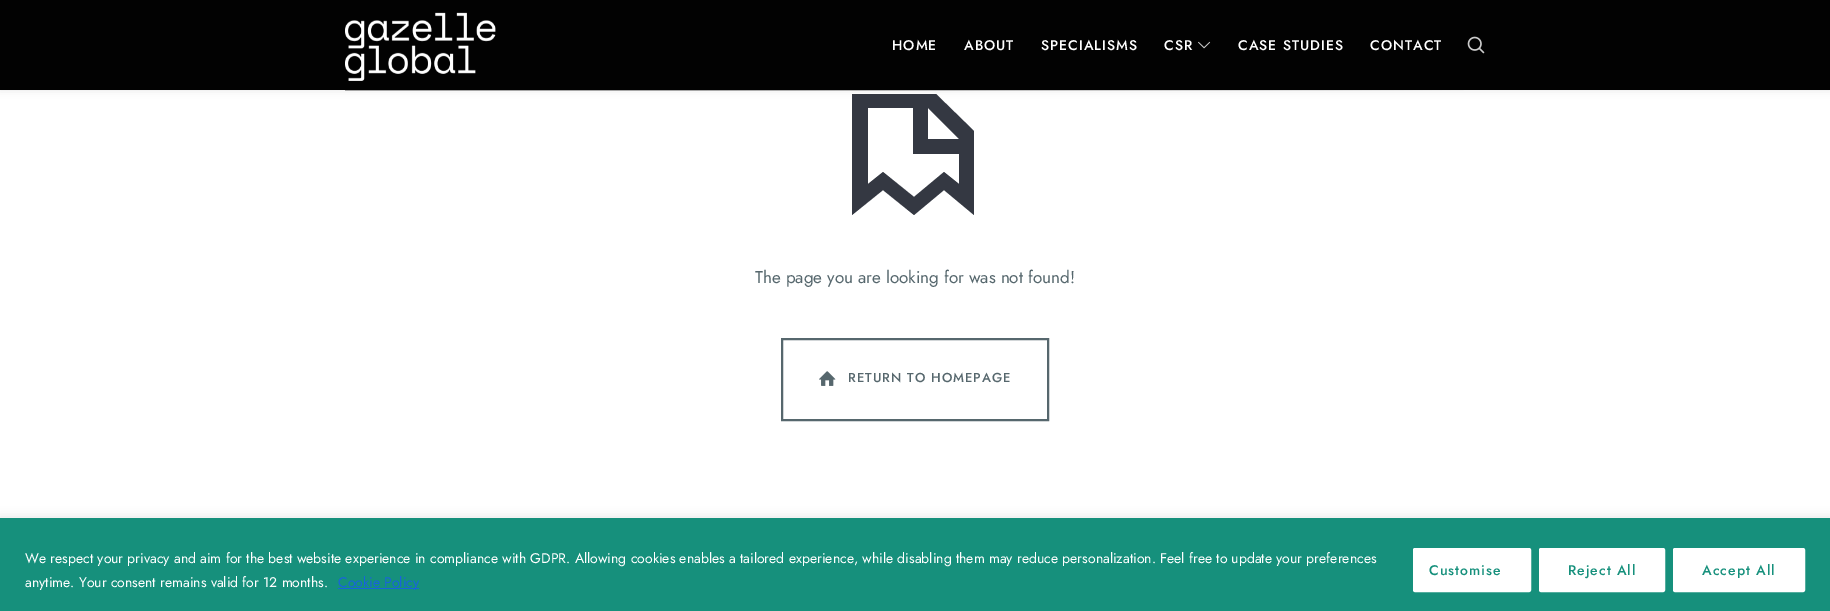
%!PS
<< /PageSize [1830 611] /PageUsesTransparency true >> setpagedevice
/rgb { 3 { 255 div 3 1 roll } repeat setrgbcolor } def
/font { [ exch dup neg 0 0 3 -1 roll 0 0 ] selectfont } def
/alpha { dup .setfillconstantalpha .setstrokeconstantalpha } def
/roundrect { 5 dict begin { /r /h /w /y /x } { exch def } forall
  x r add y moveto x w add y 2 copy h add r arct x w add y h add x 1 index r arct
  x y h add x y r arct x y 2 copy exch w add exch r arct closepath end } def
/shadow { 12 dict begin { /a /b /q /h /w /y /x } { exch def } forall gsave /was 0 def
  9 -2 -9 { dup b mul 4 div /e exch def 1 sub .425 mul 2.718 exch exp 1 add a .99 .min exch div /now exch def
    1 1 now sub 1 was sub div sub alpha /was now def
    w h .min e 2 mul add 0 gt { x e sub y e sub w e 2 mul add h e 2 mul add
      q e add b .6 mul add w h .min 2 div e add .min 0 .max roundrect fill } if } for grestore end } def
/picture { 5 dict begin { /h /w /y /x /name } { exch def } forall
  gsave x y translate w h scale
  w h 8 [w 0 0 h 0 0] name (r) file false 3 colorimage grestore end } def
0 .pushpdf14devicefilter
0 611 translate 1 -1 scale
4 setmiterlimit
255 255 255 rgb
0 0 1830 611 rectfill
0.32 alpha
gsave 345 90 moveto 1464 90 lineto 1464 91 lineto 345 91 lineto closepath clip newpath
<< /ShadingType 2 /ColorSpace /DeviceRGB /Coords [345 46 1485 45] /Extend [true true] /Function << /FunctionType 3 /Domain [0 1] /Functions [<< /FunctionType 2 /Domain [0 1] /C0 [0.008 0.008 0.008] /C1 [0.008 0.008 0.008] /N 1 >> << /FunctionType 2 /Domain [0 1] /C0 [0.008 0.008 0.008] /C1 [1 1 1] /N 1 >>] /Bounds [0.3] /Encode [0 1 0 1] >> >> shfill grestore
1 alpha
52 56 66 rgb
936 94 moveto 974 131 lineto 974 215 lineto 944 190 lineto 914 215 lineto 883 190 lineto 852 215 lineto 852 94 lineto closepath 959 184 moveto 959 154 lineto 913 154 lineto 913 108 lineto 868 108 lineto 868 184 lineto 883 172 lineto 914 197 lineto 944 172 lineto closepath 928 139 moveto 959 139 lineto 928 108 lineto closepath fill
0 0 0 rgb
0 0 1830 90 0 4 0.1 shadow
2 2 2 rgb
0 0 1830 90 rectfill
(img/1.rgb) 345 12 151 69 picture
(img/2.rgb) 1198 41 13 8 picture
(img/3.rgb) 1467 36 18 18 picture
86 103 109 rgb
2 setlinewidth
782 339 266 81 rectstroke
(img/4.rgb) 819 371 17 15 picture
172 171 171 rgb
0 517 1830 93 0 5 0.3 shadow
22 144 124 rgb
0 518 1830 93 rectfill
24 99 220 rgb
338 588 81 1 rectfill
255 255 255 rgb
1414 549 116 42 1 roundrect gsave fill grestore
stroke
1540 549 124 42 1 roundrect gsave fill grestore
stroke
1674 549 130 42 1 roundrect gsave fill grestore
stroke
/Jost-Medium 14 font
892 50 moveto 1 0 (HOME) ashow
964 50 moveto 1 0 (ABOUT) ashow
1041 50 moveto 1 0 (SPECIALISMS) ashow
1164 50 moveto 1 0 (CSR) ashow
1238 50 moveto 1 0 (CASE STUDIES) ashow
1370 50 moveto 1 0 (CONTACT) ashow
/Jost-Regular 17 font
86 103 109 rgb
755 283 moveto (The page you are looking for was not found!) show
/Jost-Medium 13 font
848 382 moveto 1 0 (RETURN TO HOMEPAGE) ashow
/Jost-Regular 14 font
255 255 255 rgb
25 563 moveto (We respect your privacy and aim for the best website experience in compliance with GDPR. Allowing cookies enables a tailored experience, while disabling them may reduce personalization. Feel free to update your preferences) show
25 587 moveto (anytime. Your consent remains valid for 12 months.) show
24 99 220 rgb
338 587 moveto (Cookie Policy) show
/Jost-Medium 14 font
22 144 124 rgb
1429 575 moveto 1 0 (Customise) ashow
1568 575 moveto 1 0 (Reject All) ashow
1702 575 moveto 1 0 (Accept All) ashow
.poppdf14devicefilter showpage
